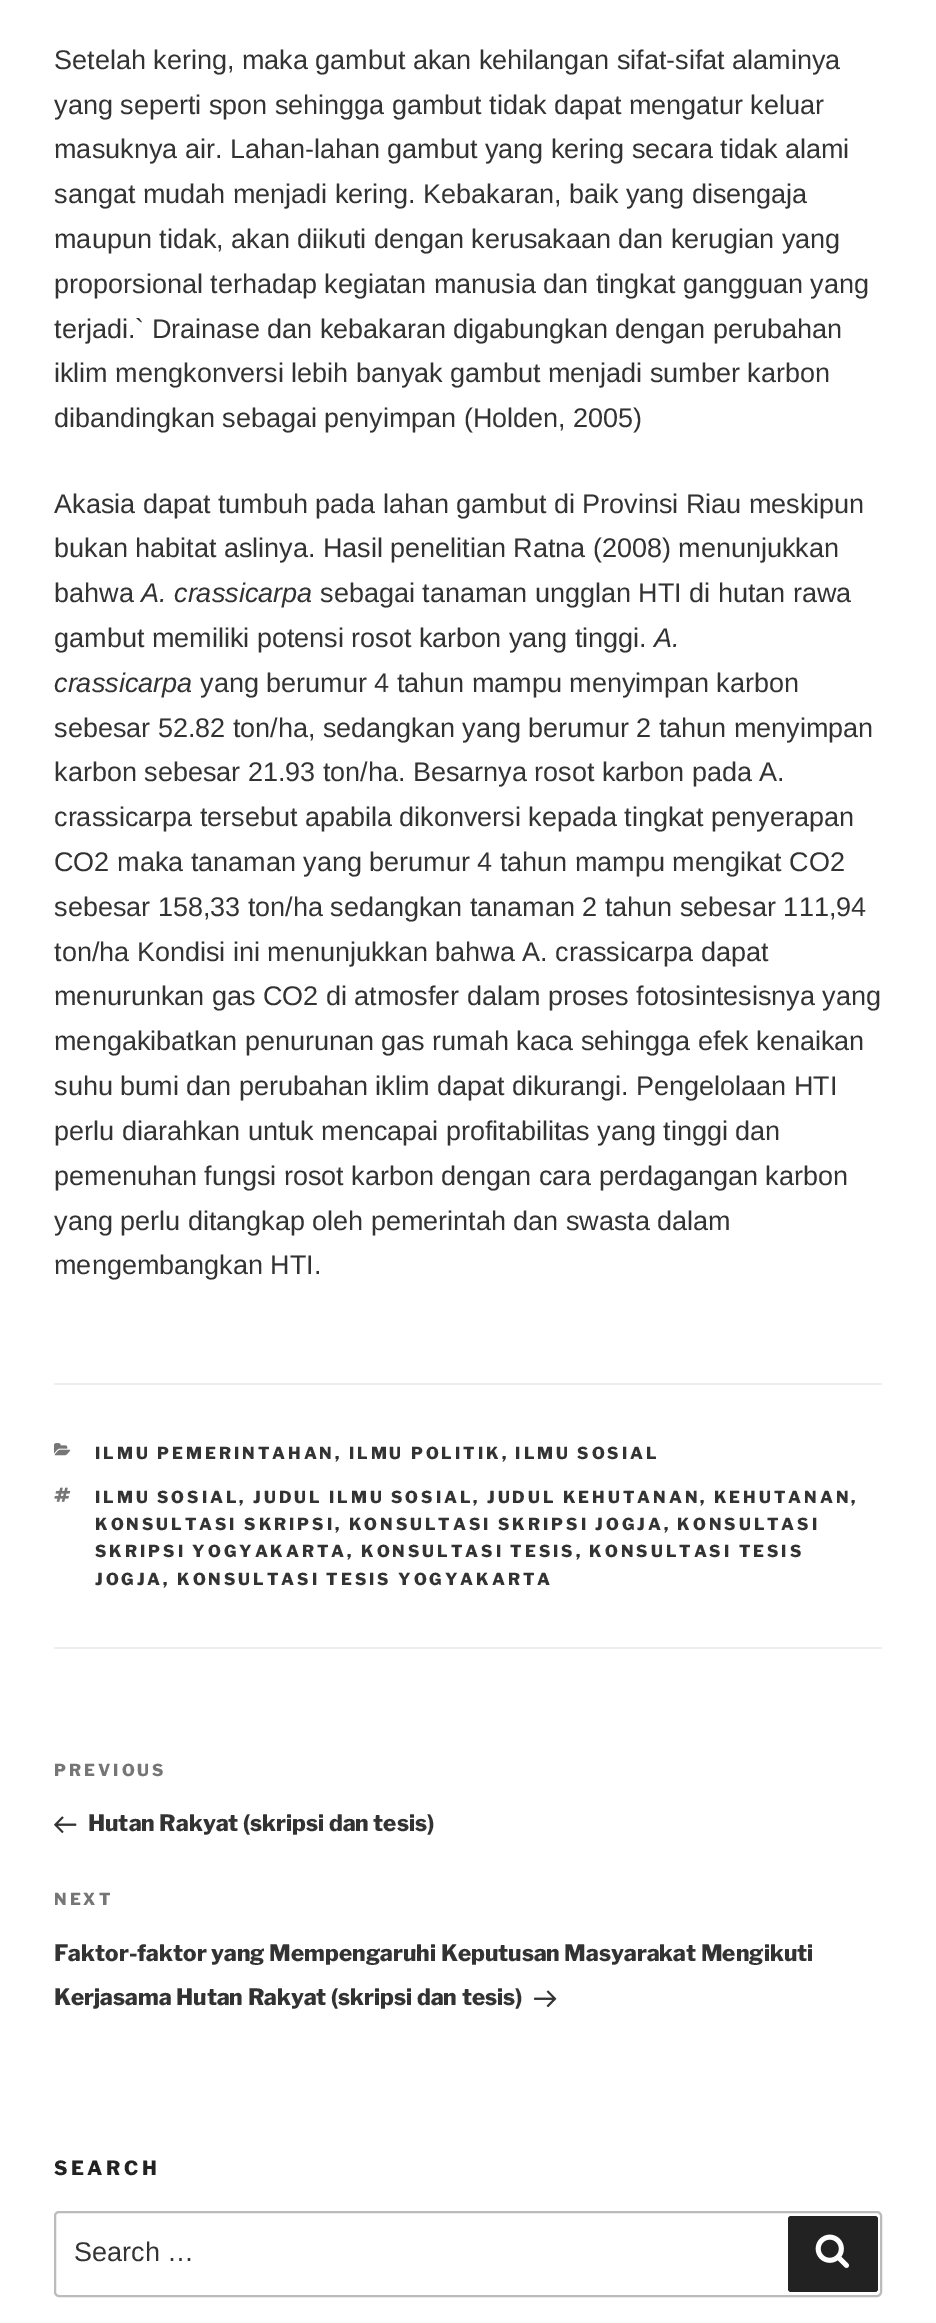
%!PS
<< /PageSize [936 2323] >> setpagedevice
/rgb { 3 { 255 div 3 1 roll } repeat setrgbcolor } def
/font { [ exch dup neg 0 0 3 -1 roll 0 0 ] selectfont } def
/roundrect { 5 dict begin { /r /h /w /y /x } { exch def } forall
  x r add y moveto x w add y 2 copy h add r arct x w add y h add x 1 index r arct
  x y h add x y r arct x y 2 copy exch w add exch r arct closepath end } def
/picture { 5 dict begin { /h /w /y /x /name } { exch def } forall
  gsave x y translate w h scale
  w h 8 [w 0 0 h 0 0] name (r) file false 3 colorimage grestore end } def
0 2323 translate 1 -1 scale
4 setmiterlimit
255 255 255 rgb
0 0 936 2323 rectfill
238 238 238 rgb
54 1383 828 2 rectfill
54 1647 828 2 rectfill
(img/1.rgb) 54 1443 17 13 picture
(img/2.rgb) 54 1487 17 15 picture
(img/3.rgb) 54 1816 23 18 picture
(img/4.rgb) 534 1990 23 18 picture
187 187 187 rgb
2 setlinewidth
55 2212 826 84 4 roundrect stroke
34 34 34 rgb
788 2216 90 76 3 roundrect fill
(img/5.rgb) 815 2234 34 34 picture
/LiberationSans-Regular 27 font
51 51 51 rgb
[
  [(Setelah kering, maka gambut akan kehilangan sifat-sifat alaminya) 54 69]
  [(yang seperti spon sehingga gambut tidak dapat mengatur keluar) 54 114]
  [(masuknya air. Lahan-lahan gambut yang kering secara tidak alami) 54 158]
  [(sangat mudah menjadi kering. Kebakaran, baik yang disengaja) 54 203]
  [(maupun tidak, akan diikuti dengan kerusakaan dan kerugian yang) 54 248]
  [(proporsional terhadap kegiatan manusia dan tingkat gangguan yang) 54 293]
  [(terjadi.` Drainase dan kebakaran digabungkan dengan perubahan) 54 338]
  [(iklim mengkonversi lebih banyak gambut menjadi sumber karbon) 54 382]
  [(dibandingkan sebagai penyimpan \(Holden, 2005\)) 54 427]
  [(Akasia dapat tumbuh pada lahan gambut di Provinsi Riau meskipun) 54 513]
  [(bukan habitat aslinya. Hasil penelitian Ratna \(2008\) menunjukkan) 54 557]
  [(bahwa) 54 602]
] { aload pop moveto show } forall
/LiberationSans-Italic 27 font
141 602 moveto (A. crassicarpa) show
/LiberationSans-Regular 27 font
320 602 moveto (sebagai tanaman ungglan HTI di hutan rawa) show
54 647 moveto (gambut memiliki potensi rosot karbon yang tinggi.) show
/LiberationSans-Italic 27 font
654 647 moveto (A.) show
54 692 moveto (crassicarpa) show
/LiberationSans-Regular 27 font
[
  [(yang berumur 4 tahun mampu menyimpan karbon) 200 692]
  [(sebesar 52.82 ton/ha, sedangkan yang berumur 2 tahun menyimpan) 54 737]
  [(karbon sebesar 21.93 ton/ha. Besarnya rosot karbon pada A.) 54 781]
  [(crassicarpa tersebut apabila dikonversi kepada tingkat penyerapan) 54 826]
  [(CO2 maka tanaman yang berumur 4 tahun mampu mengikat CO2) 54 871]
  [(sebesar 158,33 ton/ha sedangkan tanaman 2 tahun sebesar 111,94) 54 916]
  [(ton/ha Kondisi ini menunjukkan bahwa A. crassicarpa dapat) 54 961]
  [(menurunkan gas CO2 di atmosfer dalam proses fotosintesisnya yang) 54 1005]
  [(mengakibatkan penurunan gas rumah kaca sehingga efek kenaikan) 54 1050]
  [(suhu bumi dan perubahan iklim dapat dikurangi. Pengelolaan HTI) 54 1095]
  [(perlu diarahkan untuk mencapai profitabilitas yang tinggi dan) 54 1140]
  [(pemenuhan fungsi rosot karbon dengan cara perdagangan karbon) 54 1185]
  [(yang perlu ditangkap oleh pemerintah dan swasta dalam) 54 1230]
  [(mengembangkan HTI.) 54 1274]
] { aload pop moveto show } forall
/LibreFranklin-Thin 16.5 font
95 1459 moveto 3 0 (ILMU PEMERINTAHAN, ILMU POLITIK, ILMU SOSIAL) ashow
95 1503 moveto 3 0 (ILMU SOSIAL, JUDUL ILMU SOSIAL, JUDUL KEHUTANAN, KEHUTANAN,) ashow
95 1530 moveto 3 0 (KONSULTASI SKRIPSI, KONSULTASI SKRIPSI JOGJA, KONSULTASI) ashow
95 1557 moveto 3 0 (SKRIPSI YOGYAKARTA, KONSULTASI TESIS, KONSULTASI TESIS) ashow
95 1585 moveto 3 0 (JOGJA, KONSULTASI TESIS YOGYAKARTA) ashow
118 118 118 rgb
54 1776 moveto 3 0 (PREVIOUS) ashow
/LibreFranklin-Thin 22.5 font
51 51 51 rgb
88 1831 moveto (Hutan Rakyat \(skripsi dan tesis\)) show
/LibreFranklin-Thin 16.5 font
118 118 118 rgb
54 1905 moveto 3 0 (NEXT) ashow
/LibreFranklin-Thin 22.5 font
51 51 51 rgb
54 1961 moveto (Faktor-faktor yang Mempengaruhi Keputusan Masyarakat Mengikuti) show
54 2005 moveto (Kerjasama Hutan Rakyat \(skripsi dan tesis\)) show
/LibreFranklin-Thin 19.5 font
34 34 34 rgb
54 2175 moveto 3.5 0 (SEARCH) ashow
/LiberationSans-Regular 27 font
51 51 51 rgb
74 2261 moveto (Search …) show
showpage
